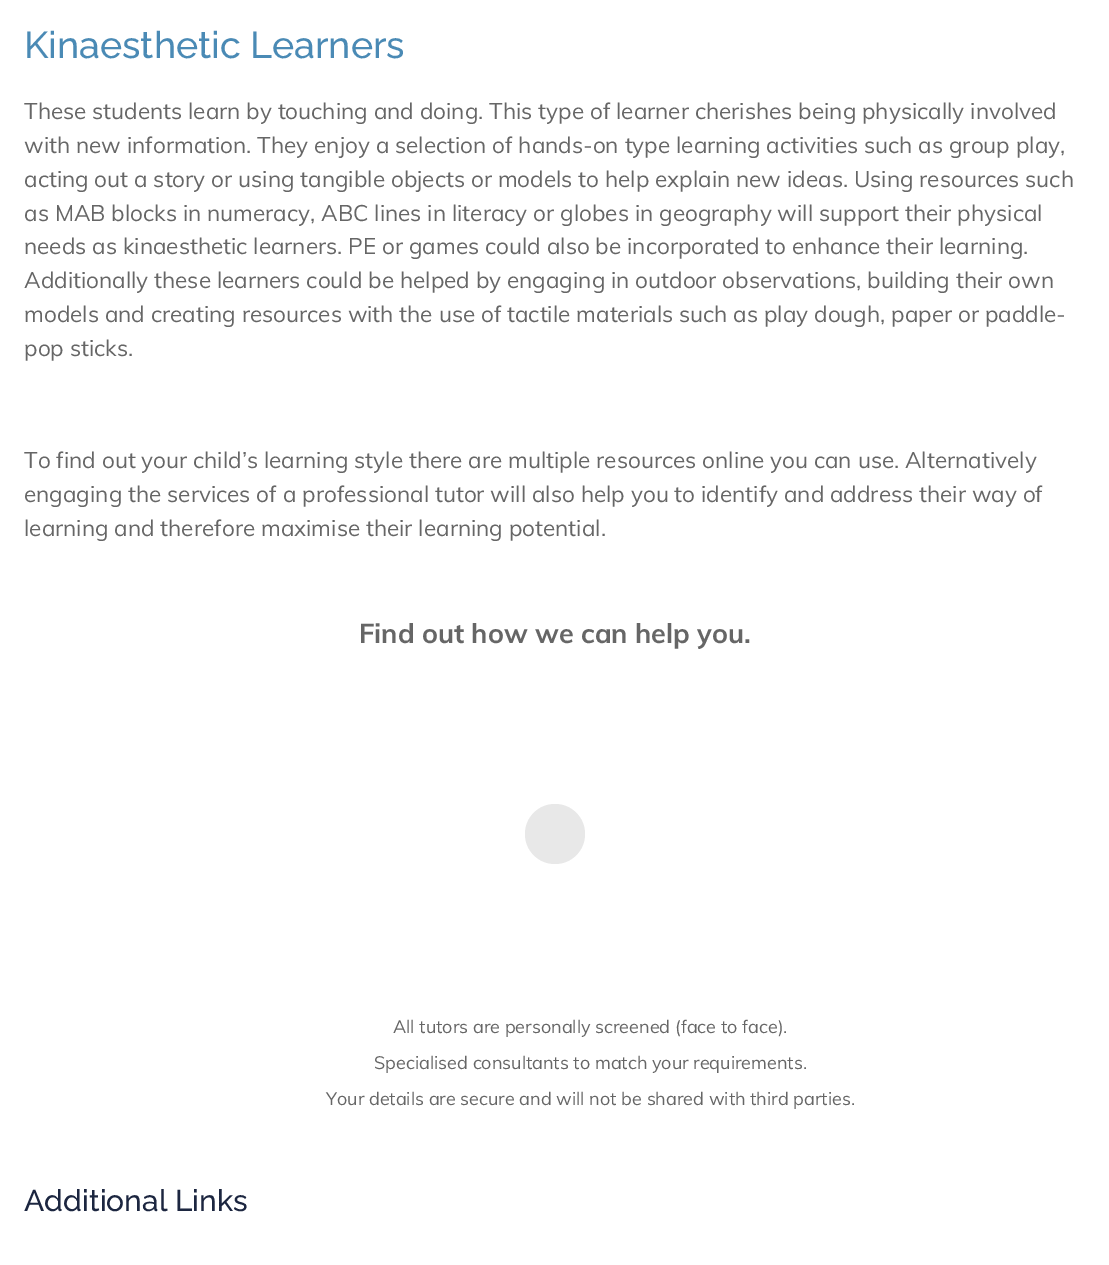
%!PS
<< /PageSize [1109 1265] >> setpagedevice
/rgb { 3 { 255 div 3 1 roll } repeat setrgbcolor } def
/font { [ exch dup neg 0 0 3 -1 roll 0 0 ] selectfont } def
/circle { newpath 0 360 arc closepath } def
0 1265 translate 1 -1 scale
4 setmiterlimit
255 255 255 rgb
0 0 1109 1265 rectfill
232 232 232 rgb
555 834 30 circle fill
/Raleway-Medium 37.5 font
74 138 181 rgb
24 58 moveto (Kinaesthetic Learners) show
/Muli-Regular 22.5 font
102 102 102 rgb
[
  [(These students learn by touching and doing. This type of learner cherishes being physically involved) 24 119]
  [(with new information. They enjoy a selection of hands-on type learning activities such as group play,) 24 153]
  [(acting out a story or using tangible objects or models to help explain new ideas. Using resources such) 24 187]
  [(as MAB blocks in numeracy, ABC lines in literacy or globes in geography will support their physical) 24 221]
  [(needs as kinaesthetic learners. PE or games could also be incorporated to enhance their learning.) 24 254]
  [(Additionally these learners could be helped by engaging in outdoor observations, building their own) 24 288]
  [(models and creating resources with the use of tactile materials such as play dough, paper or paddle-) 24 322]
  [(pop sticks.) 24 356]
  [(To find out your child’s learning style there are multiple resources online you can use. Alternatively) 24 468]
  [(engaging the services of a professional tutor will also help you to identify and address their way of) 24 502]
  [(learning and therefore maximise their learning potential.) 24 536]
] { aload pop moveto show } forall
/Muli-Bold 27 font
359 643 moveto (Find out how we can help you.) show
/Muli-Regular 18 font
[
  [(All tutors are personally screened \(face to face\).) 393 1033]
  [(Specialised consultants to match your requirements.) 374 1069]
  [(Your details are secure and will not be shared with third parties.) 326 1105]
] { aload pop moveto show } forall
/Raleway-Medium 30 font
28 38 64 rgb
24 1211 moveto (Additional Links) show
showpage
